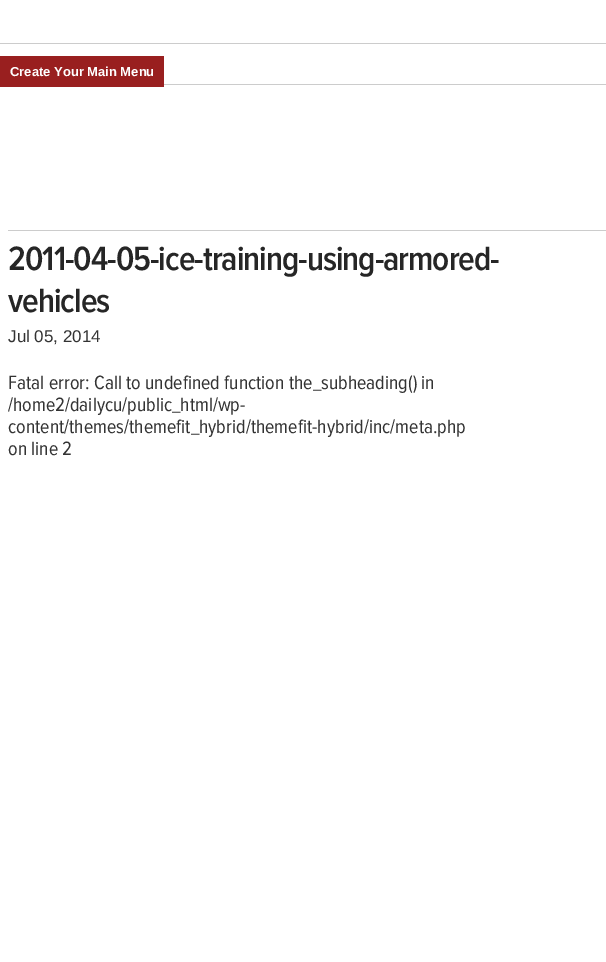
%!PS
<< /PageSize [606 962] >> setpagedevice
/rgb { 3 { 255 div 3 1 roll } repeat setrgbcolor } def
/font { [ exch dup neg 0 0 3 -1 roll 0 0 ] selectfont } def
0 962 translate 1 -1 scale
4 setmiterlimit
255 255 255 rgb
0 0 606 962 rectfill
[
  [0 43 606 1 204 204 204]
  [164 84 442 1 204 204 204]
  [0 56 164 31 153 31 31]
  [8 230 598 1 204 204 204]
] { aload pop rgb rectfill } forall
/LiberationSans-Bold 13 font
255 255 255 rgb
10 76 moveto (Create Your Main Menu) show
/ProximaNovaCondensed-SemiBold 35 font
38 38 38 rgb
8 270 moveto -1 0 (2011-04-05-ice-training-using-armored-) ashow
8 312 moveto -1 0 (vehicles) ashow
/LiberationSans-Regular 17 font
51 51 51 rgb
8 342 moveto (Jul 05, 2014) show
/ProximaNovaCondensed-Regular 20 font
[
  [(Fatal error: Call to undefined function the_subheading\(\) in) 8 389]
  [(/home2/dailycu/public_html/wp-) 8 411]
  [(content/themes/themefit_hybrid/themefit-hybrid/inc/meta.php) 8 433]
  [(on line 2) 8 455]
] { aload pop moveto show } forall
showpage
